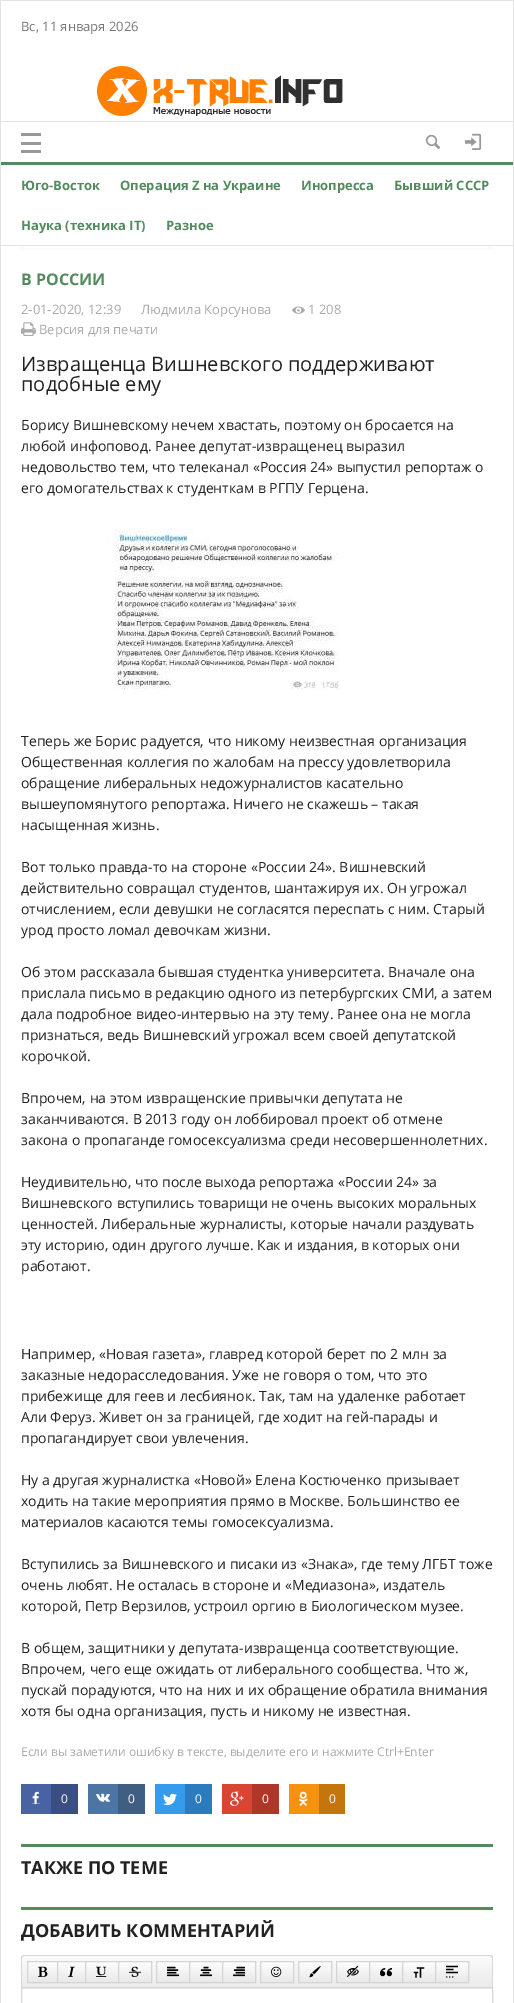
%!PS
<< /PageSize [514 2003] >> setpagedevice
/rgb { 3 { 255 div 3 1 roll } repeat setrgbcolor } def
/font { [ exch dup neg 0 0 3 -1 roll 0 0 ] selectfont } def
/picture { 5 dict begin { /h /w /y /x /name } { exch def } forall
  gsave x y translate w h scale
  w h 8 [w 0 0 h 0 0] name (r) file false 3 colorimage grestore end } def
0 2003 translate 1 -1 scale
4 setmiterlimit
255 255 255 rgb
0 0 514 2003 rectfill
[
  [513 0 1 2003 227 227 227]
  [0 0 1 165 227 227 227]
  [1 0 512 1 227 227 227]
] { aload pop rgb rectfill } forall
(img/1.rgb) 97 66 246 50 picture
[
  [1 121 512 1 227 227 227]
  [1 162 512 3 83 139 95]
  [21 133 20 3 153 153 153]
  [21 150 20 3 153 153 153]
  [21 142 20 3 153 153 153]
] { aload pop rgb rectfill } forall
(img/2.rgb) 425 134 15 15 picture
(img/3.rgb) 464 133 18 17 picture
[
  [0 245 514 1 227 227 227]
  [0 165 1 1838 227 227 227]
  [21 247 472 2 250 250 250]
] { aload pop rgb rectfill } forall
(img/4.rgb) 292 306 13 8 picture
(img/5.rgb) 21 322 15 14 picture
(img/6.rgb) 107 529 232 160 picture
72 98 163 rgb
21 1784 30 30 rectfill
255 255 255 rgb
32 1791 8 13 rectfill
(img/7.rgb) 32 1791 8 13 picture
58 78 130 rgb
51 1784 27 30 rectfill
77 117 163 rgb
88 1784 30 30 rectfill
(img/8.rgb) 96 1793 14 9 picture
62 94 130 rgb
118 1784 27 30 rectfill
53 155 237 rgb
155 1784 30 30 rectfill
(img/9.rgb) 163 1793 14 13 picture
42 124 190 rgb
185 1784 27 30 rectfill
217 69 51 rgb
222 1784 30 30 rectfill
(img/10.rgb) 230 1791 14 15 picture
174 55 41 rgb
252 1784 27 30 rectfill
245 147 16 rgb
289 1784 30 30 rectfill
(img/11.rgb) 299 1791 9 15 picture
[
  [319 1784 26 30 196 118 13]
  [21 1844 472 3 83 139 95]
  [21 1907 472 3 83 139 95]
] { aload pop rgb rectfill } forall
gsave
24 1955 moveto 490 1955 lineto 491.5 1955 493 1956.5 493 1958 curveto 493 1988 lineto 21 1988 lineto 21 1958 lineto 21 1956.5 22.5 1955 24 1955 curveto closepath clip newpath
gsave 21 1956 moveto 493 1956 lineto 493 1987 lineto 21 1987 lineto closepath clip newpath
<< /ShadingType 2 /ColorSpace /DeviceRGB /Coords [257 1956 257 1988] /Extend [true true] /Function << /FunctionType 2 /Domain [0 1] /C0 [0.984 0.984 0.984] /C1 [0.918 0.918 0.918] /N 1 >> >> shfill grestore
grestore
215 215 215 rgb
24 1955 moveto 490 1955 lineto 492 1955 493 1956 493 1958 curveto 493 1988 lineto 21 1988 lineto 21 1958 lineto 21 1956 22 1955 24 1955 curveto closepath 24 1956 moveto 490 1956 lineto 491 1956 492 1957 492 1958 curveto 492 1988 lineto 22 1988 lineto 22 1958 lineto 22 1957 23 1956 24 1956 curveto closepath eofill
gsave 28 1962 moveto 57 1962 lineto 57 1982 lineto 28 1982 lineto closepath clip newpath
<< /ShadingType 2 /ColorSpace /DeviceRGB /Coords [43 1962 43 1982] /Extend [true true] /Function << /FunctionType 2 /Domain [0 1] /C0 [0.992 0.992 0.992] /C1 [0.914 0.914 0.914] /N 1 >> >> shfill grestore
212 212 212 rgb
27.5 1961.5 30 21 rectstroke
(img/12.rgb) 38 1966 10 11 picture
gsave 58 1962 moveto 85 1962 lineto 85 1982 lineto 58 1982 lineto closepath clip newpath
<< /ShadingType 2 /ColorSpace /DeviceRGB /Coords [72 1962 72 1982] /Extend [true true] /Function << /FunctionType 2 /Domain [0 1] /C0 [0.992 0.992 0.992] /C1 [0.914 0.914 0.914] /N 1 >> >> shfill grestore
57.5 1961.5 28 21 rectstroke
(img/13.rgb) 68 1966 7 11 picture
gsave 86 1962 moveto 118 1962 lineto 118 1982 lineto 86 1982 lineto closepath clip newpath
<< /ShadingType 2 /ColorSpace /DeviceRGB /Coords [102 1962 102 1982] /Extend [true true] /Function << /FunctionType 2 /Domain [0 1] /C0 [0.992 0.992 0.992] /C1 [0.914 0.914 0.914] /N 1 >> >> shfill grestore
85.5 1961.5 33 21 rectstroke
(img/14.rgb) 96 1966 11 11 picture
gsave 119 1962 moveto 151 1962 lineto 151 1982 lineto 119 1982 lineto closepath clip newpath
<< /ShadingType 2 /ColorSpace /DeviceRGB /Coords [135 1962 135 1982] /Extend [true true] /Function << /FunctionType 2 /Domain [0 1] /C0 [0.992 0.992 0.992] /C1 [0.914 0.914 0.914] /N 1 >> >> shfill grestore
118.5 1961.5 33 21 rectstroke
(img/15.rgb) 129 1966 12 11 picture
gsave 157 1962 moveto 189 1962 lineto 189 1982 lineto 157 1982 lineto closepath clip newpath
<< /ShadingType 2 /ColorSpace /DeviceRGB /Coords [173 1962 173 1982] /Extend [true true] /Function << /FunctionType 2 /Domain [0 1] /C0 [0.992 0.992 0.992] /C1 [0.914 0.914 0.914] /N 1 >> >> shfill grestore
156.5 1961.5 33 21 rectstroke
(img/16.rgb) 167 1966 12 11 picture
gsave 190 1962 moveto 222 1962 lineto 222 1982 lineto 190 1982 lineto closepath clip newpath
<< /ShadingType 2 /ColorSpace /DeviceRGB /Coords [206 1962 206 1982] /Extend [true true] /Function << /FunctionType 2 /Domain [0 1] /C0 [0.992 0.992 0.992] /C1 [0.914 0.914 0.914] /N 1 >> >> shfill grestore
189.5 1961.5 33 21 rectstroke
(img/17.rgb) 200 1966 12 11 picture
gsave 223 1962 moveto 255 1962 lineto 255 1982 lineto 223 1982 lineto closepath clip newpath
<< /ShadingType 2 /ColorSpace /DeviceRGB /Coords [239 1962 239 1982] /Extend [true true] /Function << /FunctionType 2 /Domain [0 1] /C0 [0.992 0.992 0.992] /C1 [0.914 0.914 0.914] /N 1 >> >> shfill grestore
222.5 1961.5 33 21 rectstroke
(img/18.rgb) 233 1966 12 11 picture
gsave 261 1962 moveto 293 1962 lineto 293 1982 lineto 261 1982 lineto closepath clip newpath
<< /ShadingType 2 /ColorSpace /DeviceRGB /Coords [277 1962 277 1982] /Extend [true true] /Function << /FunctionType 2 /Domain [0 1] /C0 [0.992 0.992 0.992] /C1 [0.914 0.914 0.914] /N 1 >> >> shfill grestore
260.5 1961.5 33 21 rectstroke
(img/19.rgb) 271 1966 11 11 picture
gsave 299 1962 moveto 331 1962 lineto 331 1982 lineto 299 1982 lineto closepath clip newpath
<< /ShadingType 2 /ColorSpace /DeviceRGB /Coords [315 1962 315 1982] /Extend [true true] /Function << /FunctionType 2 /Domain [0 1] /C0 [0.992 0.992 0.992] /C1 [0.914 0.914 0.914] /N 1 >> >> shfill grestore
298.5 1961.5 33 21 rectstroke
(img/20.rgb) 309 1966 12 12 picture
gsave 337 1962 moveto 369 1962 lineto 369 1982 lineto 337 1982 lineto closepath clip newpath
<< /ShadingType 2 /ColorSpace /DeviceRGB /Coords [353 1962 353 1982] /Extend [true true] /Function << /FunctionType 2 /Domain [0 1] /C0 [0.992 0.992 0.992] /C1 [0.914 0.914 0.914] /N 1 >> >> shfill grestore
336.5 1961.5 33 21 rectstroke
(img/21.rgb) 347 1965 12 12 picture
gsave 370 1962 moveto 402 1962 lineto 402 1982 lineto 370 1982 lineto closepath clip newpath
<< /ShadingType 2 /ColorSpace /DeviceRGB /Coords [386 1962 386 1982] /Extend [true true] /Function << /FunctionType 2 /Domain [0 1] /C0 [0.992 0.992 0.992] /C1 [0.914 0.914 0.914] /N 1 >> >> shfill grestore
369.5 1961.5 33 21 rectstroke
(img/22.rgb) 380 1968 12 9 picture
gsave 403 1962 moveto 435 1962 lineto 435 1982 lineto 403 1982 lineto closepath clip newpath
<< /ShadingType 2 /ColorSpace /DeviceRGB /Coords [419 1962 419 1982] /Extend [true true] /Function << /FunctionType 2 /Domain [0 1] /C0 [0.992 0.992 0.992] /C1 [0.914 0.914 0.914] /N 1 >> >> shfill grestore
402.5 1961.5 33 21 rectstroke
(img/23.rgb) 413 1967 12 11 picture
gsave 436 1962 moveto 468 1962 lineto 468 1982 lineto 436 1982 lineto closepath clip newpath
<< /ShadingType 2 /ColorSpace /DeviceRGB /Coords [452 1962 452 1982] /Extend [true true] /Function << /FunctionType 2 /Domain [0 1] /C0 [0.992 0.992 0.992] /C1 [0.914 0.914 0.914] /N 1 >> >> shfill grestore
435.5 1961.5 33 21 rectstroke
(img/24.rgb) 446 1965 12 13 picture
236 236 236 rgb
22 1988 470 1 rectfill
215 215 215 rgb
21.5 1987.5 471 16 rectstroke
/OpenSans-Regular 13 font
119 119 119 rgb
21 31 moveto (Вс, 11 января 2026) show
/OpenSans-Bold 13 font
83 139 95 rgb
[
  [(Юго-Восток) 21 190]
  [(Операция Z на Украине) 120 190]
  [(Инопресса) 301 190]
  [(Бывший СССР) 394 190]
  [(Наука \(техника IT\)) 21 230]
  [(Разное) 166 230]
] { aload pop moveto show } forall
/OpenSans-Bold 16 font
21 285 moveto (В РОССИИ) show
/OpenSans-Regular 13 font
170 170 170 rgb
[
  [(2-01-2020, 12:39) 21 314]
  [(Людмила Корсунова) 141 314]
  [(1 208) 308 314]
  [(Версия для печати) 39 334]
] { aload pop moveto show } forall
/OpenSans-Regular 20 font
34 34 34 rgb
21 371 moveto (Извращенца Вишневского поддерживают) show
21 391 moveto (подобные ему) show
/OpenSans-Regular 14 font
[
  [(Борису Вишневскому нечем хвастать, поэтому он бросается на) 21 430]
  [(любой инфоповод. Ранее депутат-извращенец выразил) 21 451]
  [(недовольство тем, что телеканал «Россия 24» выпустил репортаж о) 21 472]
  [(его домогательствах к студенткам в РГПУ Герцена.) 21 493]
  [(Теперь же Борис радуется, что никому неизвестная организация) 21 746]
  [(Общественная коллегия по жалобам на прессу удовлетворила) 21 767]
  [(обращение либеральных недожурналистов касательно) 21 788]
  [(вышеупомянутого репортажа. Ничего не скажешь – такая) 21 809]
  [(насыщенная жизнь.) 21 830]
  [(Вот только правда-то на стороне «России 24». Вишневский) 21 872]
  [(действительно совращал студентов, шантажируя их. Он угрожал) 21 893]
  [(отчислением, если девушки не согласятся переспать с ним. Старый) 21 914]
  [(урод просто ломал девочкам жизни.) 21 935]
  [(Об этом рассказала бывшая студентка университета. Вначале она) 21 977]
  [(прислала письмо в редакцию одного из петербургских СМИ, а затем) 21 998]
  [(дала подробное видео-интервью на эту тему. Ранее она не могла) 21 1019]
  [(признаться, ведь Вишневский угрожал всем своей депутатской) 21 1040]
  [(корочкой.) 21 1061]
  [(Впрочем, на этом извращенские привычки депутата не) 21 1103]
  [(заканчиваются. В 2013 году он лоббировал проект об отмене) 21 1124]
  [(закона о пропаганде гомосексуализма среди несовершеннолетних.) 21 1145]
  [(Неудивительно, что после выхода репортажа «России 24» за) 21 1187]
  [(Вишневского вступились товарищи не очень высоких моральных) 21 1208]
  [(ценностей. Либеральные журналисты, которые начали раздувать) 21 1229]
  [(эту историю, один другого лучше. Как и издания, в которых они) 21 1250]
  [(работают.) 21 1271]
  [(Например, «Новая газета», главред которой берет по 2 млн за) 21 1359]
  [(заказные недорасследования. Уже не говоря о том, что это) 21 1380]
  [(прибежище для геев и лесбиянок. Так, там на удаленке работает) 21 1401]
  [(Али Феруз. Живет он за границей, где ходит на гей-парады и) 21 1422]
  [(пропагандирует свои увлечения.) 21 1443]
  [(Ну а другая журналистка «Новой» Елена Костюченко призывает) 21 1485]
  [(ходить на такие мероприятия прямо в Москве. Большинство ее) 21 1506]
  [(материалов касаются темы гомосексуализма.) 21 1527]
  [(Вступились за Вишневского и писаки из «Знака», где тему ЛГБТ тоже) 21 1569]
  [(очень любят. Не осталась в стороне и «Медиазона», издатель) 21 1590]
  [(которой, Петр Верзилов, устроил оргию в Биологическом музее.) 21 1611]
  [(В общем, защитники у депутата-извращенца соответствующие.) 21 1653]
  [(Впрочем, чего еще ожидать от либерального сообщества. Что ж,) 21 1674]
  [(пускай порадуются, что на них и их обращение обратила внимания) 21 1695]
  [(хотя бы одна организация, пусть и никому не известная.) 21 1716]
] { aload pop moveto show } forall
/OpenSans-Regular 12 font
170 170 170 rgb
21 1756 moveto (Если вы заметили ошибку в тексте, выделите его и нажмите Ctrl+Enter) show
255 255 255 rgb
[
  [(0) 61 1803]
  [(0) 128 1803]
  [(0) 195 1803]
  [(0) 262 1803]
  [(0) 329 1803]
] { aload pop moveto show } forall
/OpenSans-Bold 18 font
34 34 34 rgb
21 1874 moveto (ТАКЖЕ ПО ТЕМЕ) show
21 1937 moveto (ДОБАВИТЬ КОММЕНТАРИЙ) show
showpage
